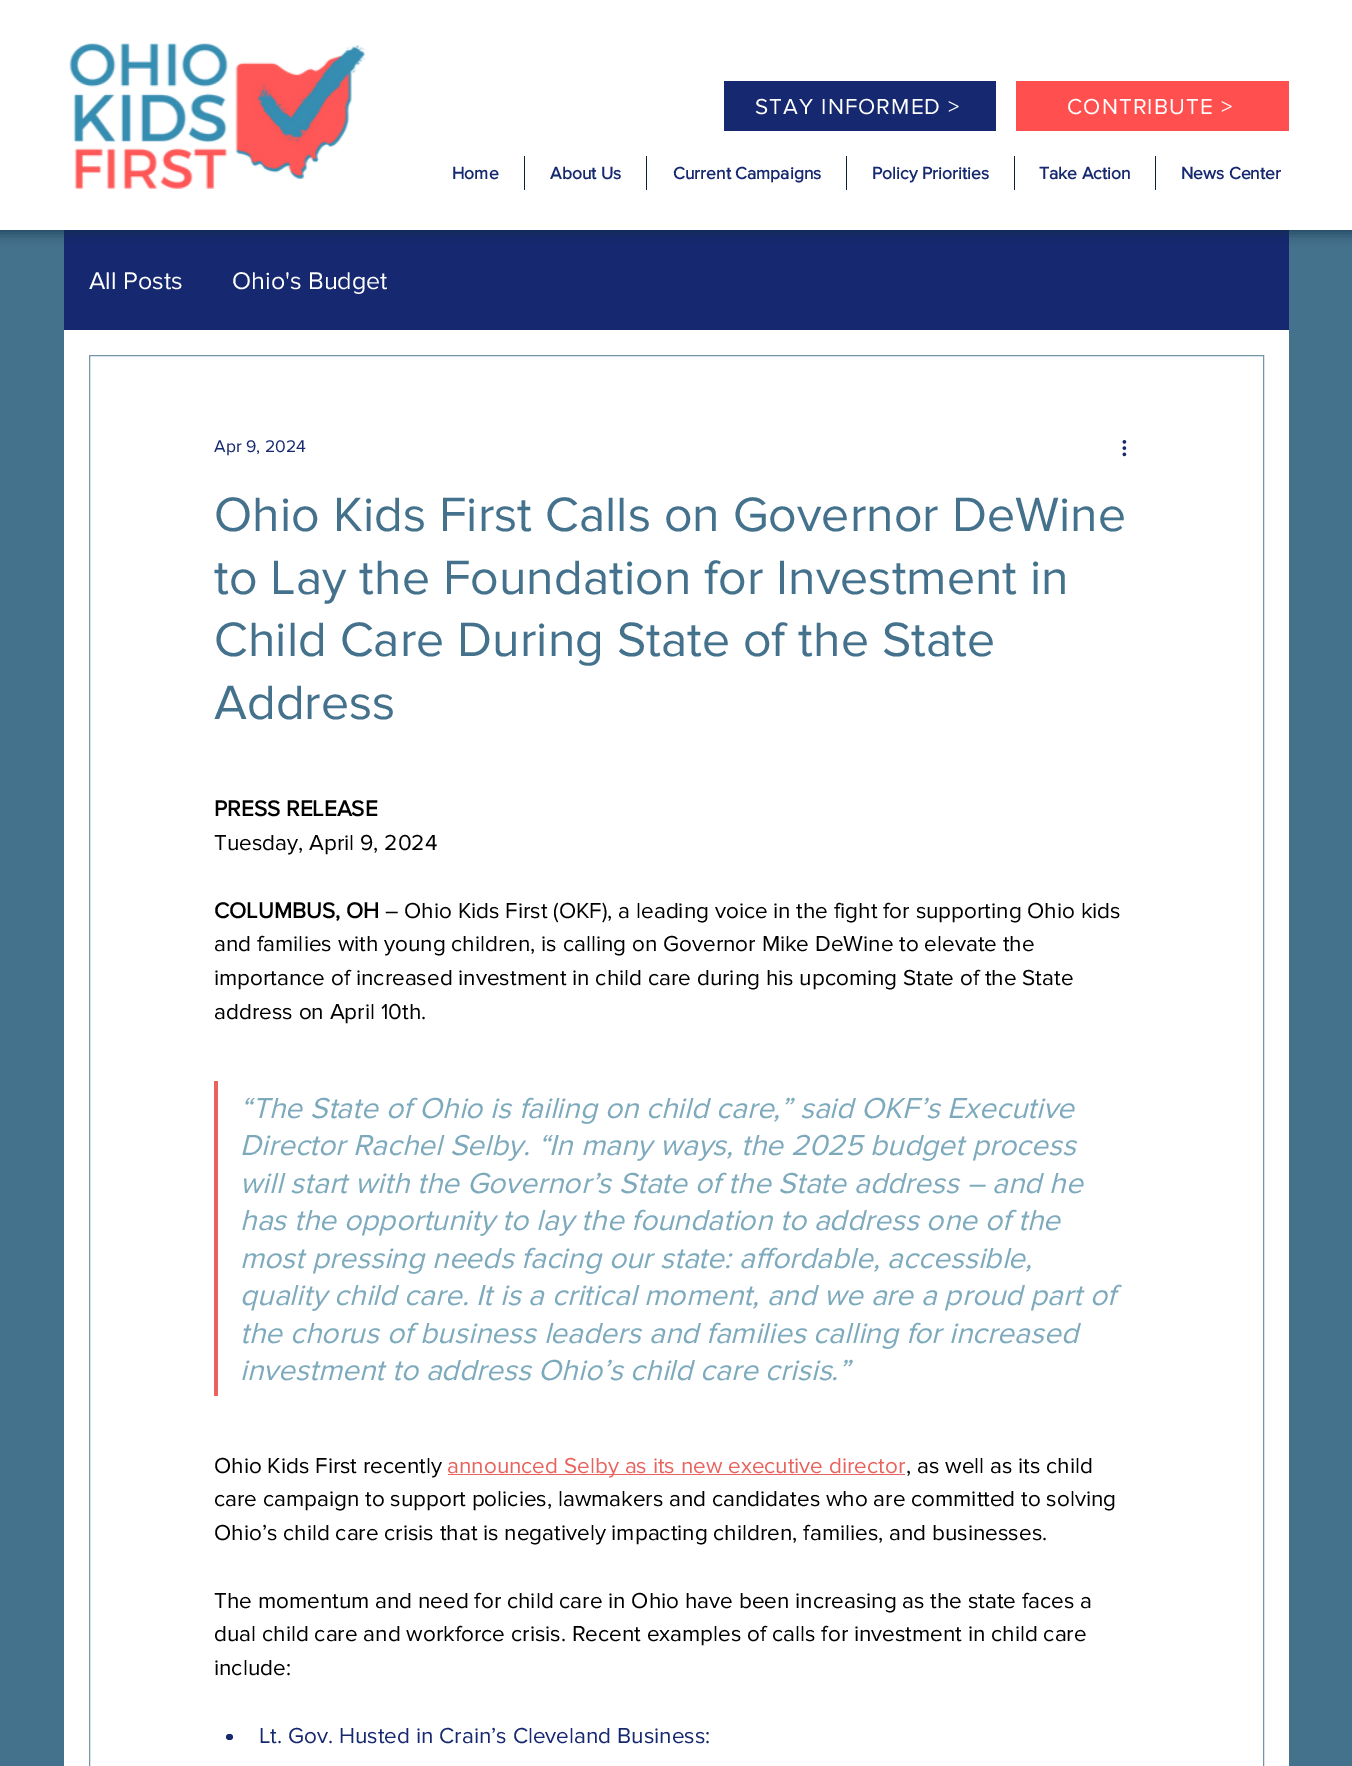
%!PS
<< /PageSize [1352 1766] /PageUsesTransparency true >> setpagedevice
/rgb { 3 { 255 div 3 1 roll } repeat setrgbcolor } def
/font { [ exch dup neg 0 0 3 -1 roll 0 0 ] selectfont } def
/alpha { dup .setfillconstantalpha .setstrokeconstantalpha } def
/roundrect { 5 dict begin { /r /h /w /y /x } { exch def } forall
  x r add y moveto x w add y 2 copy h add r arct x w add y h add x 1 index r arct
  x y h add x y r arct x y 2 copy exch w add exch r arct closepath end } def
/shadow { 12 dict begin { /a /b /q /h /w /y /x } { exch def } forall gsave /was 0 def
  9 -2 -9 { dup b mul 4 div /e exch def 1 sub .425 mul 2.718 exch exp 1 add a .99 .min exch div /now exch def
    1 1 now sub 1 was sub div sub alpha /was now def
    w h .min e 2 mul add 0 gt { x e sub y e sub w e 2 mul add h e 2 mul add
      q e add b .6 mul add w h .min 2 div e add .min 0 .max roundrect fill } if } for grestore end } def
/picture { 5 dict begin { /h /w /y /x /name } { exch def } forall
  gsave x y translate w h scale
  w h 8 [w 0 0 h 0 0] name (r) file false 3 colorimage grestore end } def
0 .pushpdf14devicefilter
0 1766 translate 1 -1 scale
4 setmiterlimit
68 113 140 rgb
0 0 1352 1766 rectfill
22 40 111 rgb
64 230 1225 100 rectfill
14 46 71 rgb
-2 -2 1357 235 0 6 0.7 shadow
255 255 255 rgb
0 0 1352 230 rectfill
(img/1.rgb) 69 43 297 146 picture
[
  [724 81 272 50 22 40 111]
  [1016 81 273 50 255 79 79]
  [524 156 1 34 13 33 48]
  [646 156 1 34 13 33 48]
  [846 156 1 34 13 33 48]
  [1014 156 1 34 13 33 48]
  [1155 156 1 34 13 33 48]
  [64 330 1225 1436 255 255 255]
] { aload pop rgb rectfill } forall
115 149 169 rgb
89.5 355.5 1174 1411 rectstroke
(img/2.rgb) 1122 440 5 17 picture
233 99 94 rgb
214 1081 4 315 rectfill
448 1474 457 1 rectfill
22 40 111 rgb
226 1734 7 6 3 roundrect fill
/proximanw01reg-Regular 22.5 font
255 255 255 rgb
755 114 moveto 1.1 0 (STAY INFORMED >) ashow
1067 114 moveto 1.1 0 (CONTRIBUTE >) ashow
/proximanw01reg-Bold 17.5 font
22 40 111 rgb
[
  [(Home) 452 179]
  [(About Us) 550 179]
  [(Current Campaigns) 673 179]
  [(Policy Priorities) 872 179]
  [(Take Action) 1039 179]
  [(News Center) 1181 179]
] { aload pop moveto show } forall
/proximanw01reg-Regular 25 font
255 255 255 rgb
89 289 moveto (All Posts) show
232 289 moveto (Ohio's Budget) show
/proximanw01reg-Regular 17.5 font
22 40 111 rgb
214 452 moveto (Apr 9, 2024) show
/proximanw01reg-Regular 50 font
68 113 140 rgb
[
  [(Ohio Kids First Calls on Governor DeWine) 214 531]
  [(to Lay the Foundation for Investment in) 214 594]
  [(Child Care During State of the State) 214 656]
  [(Address) 214 719]
] { aload pop moveto show } forall
/proximanw01reg-Bold 22.5 font
0 0 0 rgb
214 816 moveto (PRESS RELEASE) show
/proximanw01reg-Regular 22.5 font
214 850 moveto (Tuesday, April 9, 2024) show
/proximanw01reg-Bold 22.5 font
214 918 moveto (COLUMBUS, OH) show
/proximanw01reg-Regular 22.5 font
[
  [(– Ohio Kids First \(OKF\), a leading voice in the fight for supporting Ohio kids) 385 918]
  [(and families with young children, is calling on Governor Mike DeWine to elevate the) 214 951]
  [(importance of increased investment in child care during his upcoming State of the State) 214 985]
  [(address on April 10th.) 214 1019]
] { aload pop moveto show } forall
/proximanw01reg-Italic 30 font
124 169 187 rgb
[
  [(“The State of Ohio is failing on child care,” said OKF’s Executive) 240 1118]
  [(Director Rachel Selby. “In many ways, the 2025 budget process) 240 1155]
  [(will start with the Governor’s State of the State address – and he) 240 1193]
  [(has the opportunity to lay the foundation to address one of the) 240 1230]
  [(most pressing needs facing our state: affordable, accessible,) 240 1268]
  [(quality child care. It is a critical moment, and we are a proud part of) 240 1305]
  [(the chorus of business leaders and families calling for increased) 240 1343]
  [(investment to address Ohio’s child care crisis.”) 240 1380]
] { aload pop moveto show } forall
/proximanw01reg-Regular 22.5 font
0 0 0 rgb
214 1473 moveto (Ohio Kids First recently) show
233 99 94 rgb
447 1473 moveto (announced Selby as its new executive director) show
0 0 0 rgb
[
  [(, as well as its child) 906 1473]
  [(care campaign to support policies, lawmakers and candidates who are committed to solving) 214 1506]
  [(Ohio’s child care crisis that is negatively impacting children, families, and businesses.) 214 1540]
  [(The momentum and need for child care in Ohio have been increasing as the state faces a) 214 1608]
  [(dual child care and workforce crisis. Recent examples of calls for investment in child care) 214 1641]
  [(include:) 214 1675]
] { aload pop moveto show } forall
22 40 111 rgb
259 1743 moveto (Lt. Gov. Husted in Crain’s Cleveland Business:) show
.poppdf14devicefilter showpage
